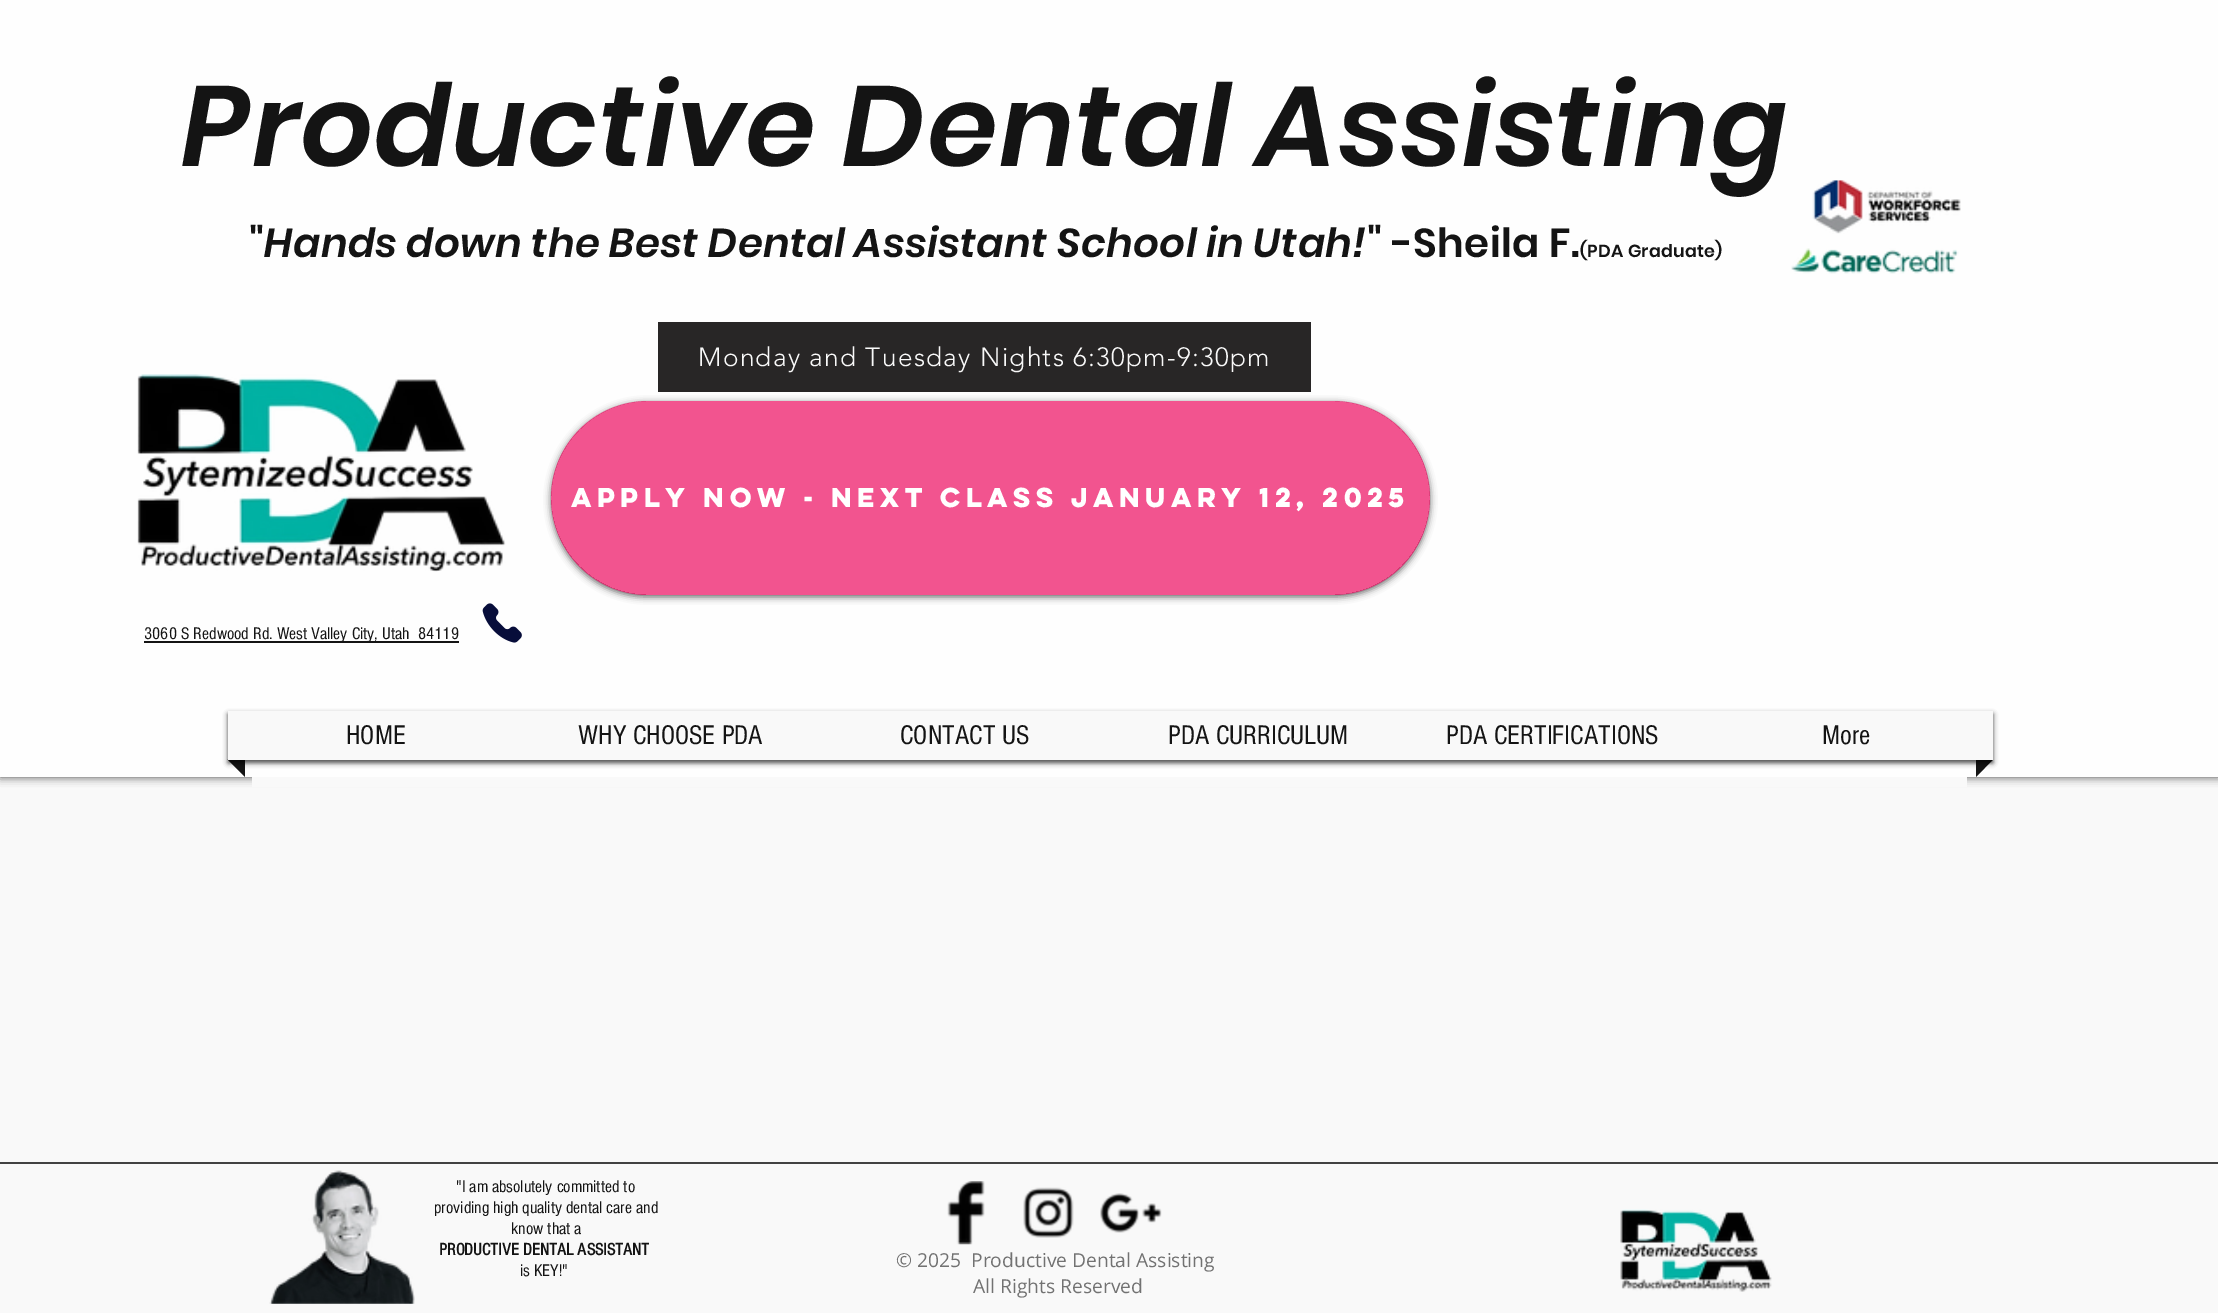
%!PS
<< /PageSize [2218 1313] /PageUsesTransparency true >> setpagedevice
/rgb { 3 { 255 div 3 1 roll } repeat setrgbcolor } def
/font { [ exch dup neg 0 0 3 -1 roll 0 0 ] selectfont } def
/alpha { dup .setfillconstantalpha .setstrokeconstantalpha } def
/roundrect { 5 dict begin { /r /h /w /y /x } { exch def } forall
  x r add y moveto x w add y 2 copy h add r arct x w add y h add x 1 index r arct
  x y h add x y r arct x y 2 copy exch w add exch r arct closepath end } def
/shadow { 12 dict begin { /a /b /q /h /w /y /x } { exch def } forall gsave /was 0 def
  9 -2 -9 { dup b mul 4 div /e exch def 1 sub .425 mul 2.718 exch exp 1 add a .99 .min exch div /now exch def
    1 1 now sub 1 was sub div sub alpha /was now def
    w h .min e 2 mul add 0 gt { x e sub y e sub w e 2 mul add h e 2 mul add
      q e add b .6 mul add w h .min 2 div e add .min 0 .max roundrect fill } if } for grestore end } def
/picture { 5 dict begin { /h /w /y /x /name } { exch def } forall
  gsave x y translate w h scale
  w h 8 [w 0 0 h 0 0] name (r) file false 3 colorimage grestore end } def
0 .pushpdf14devicefilter
0 1313 translate 1 -1 scale
4 setmiterlimit
249 249 249 rgb
0 0 2218 1313 rectfill
0 0 0 rgb
0 0 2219 777 0 4.5 0.7 shadow
254 254 254 rgb
0 0 2218 777 rectfill
(img/1.rgb) 1812 180 149 54 picture
(img/2.rgb) 1791 248 168 26 picture
gsave
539 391 moveto 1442 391 lineto 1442 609 lineto 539 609 lineto closepath 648 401 moveto 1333 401 lineto 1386.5 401 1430 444.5 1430 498 curveto 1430 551.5 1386.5 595 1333 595 curveto 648 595 lineto 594.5 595 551 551.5 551 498 curveto 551 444.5 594.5 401 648 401 curveto closepath eoclip newpath
0 0 0 rgb
551 403 879 194 97 3.5 0.6 shadow
grestore
40 38 38 rgb
658 322 653 70 rectfill
(img/3.rgb) 137 374 369 198 picture
0.73 alpha
237 21 102 rgb
551 401 879 194 97 roundrect fill
1 alpha
20 20 20 rgb
144 641 315 2 rectfill
(img/4.rgb) 482 603 40 40 picture
227.5 759.5 moveto 245 759.5 lineto 245 777 lineto closepath fill
1976 759.5 moveto 1993 759.5 lineto 1976 777 lineto closepath fill
0 0 0 rgb
228 714 1765 49 0 2.5 0.7 shadow
[
  [228 711 1765 49 249 249 249]
  [252 777 1715 10 249 249 249]
  [0 1162 2218 2 66 66 66]
] { aload pop rgb rectfill } forall
(img/5.rgb) 269 1170 146 134 picture
(img/6.rgb) 947 1181 38 64 picture
(img/7.rgb) 1023 1187 51 51 picture
(img/8.rgb) 1100 1193 62 40 picture
(img/9.rgb) 1620 1209 152 83 picture
/Poppins-SemiBoldItalic 113.75 font
20 20 20 rgb
182 166 moveto 1.15 0 (Productive Dental Assisting) ashow
/Poppins-SemiBold 40.25 font
249 257 moveto 0.4 0 (") ashow
/Poppins-SemiBoldItalic 40.25 font
264 257 moveto 0.4 0 (Hands down the Best Dental Assistant School in Utah!) ashow
/Poppins-SemiBold 40.25 font
1367 257 moveto 0.4 0 (" -Sheila F.) ashow
/Poppins-SemiBold 17.5 font
1580 257 moveto 0.25 0 (\(PDA Graduate\)) ashow
/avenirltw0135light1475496-Light 26.25 font
249 249 249 rgb
698 366 moveto 1.3 0 (Monday and Tuesday Nights 6:30pm-9:30pm) ashow
/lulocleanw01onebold-Bold 24.5 font
255 255 255 rgb
571 507 moveto (Apply Now - Next Class January 12, 2025) show
/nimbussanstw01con-Regular 17.5 font
20 20 20 rgb
144 639 moveto (3060 S Redwood Rd. West Valley City, Utah  84119) show
/nimbussanstw01con-Regular 28 font
[
  [(HOME) 346 744]
  [(WHY CHOOSE PDA) 578 744]
  [(CONTACT US) 900 744]
  [(PDA CURRICULUM) 1168 744]
  [(PDA CERTIFICATIONS) 1446 744]
  [(More) 1822 744]
] { aload pop moveto show } forall
/nimbussanstw01con-Regular 17.5 font
[
  [("I am absolutely committed to) 456 1192]
  [(providing high quality dental care and) 434 1213]
  [(know that a) 511 1234]
] { aload pop moveto show } forall
/nimbussanstw01con-Bold 17.5 font
439 1255 moveto (PRODUCTIVE DENTAL ASSISTANT) show
/nimbussanstw01con-Regular 17.5 font
520 1276 moveto (is KEY!") show
/OpenSans-Regular 19.25 font
114 114 114 rgb
896 1267 moveto (© 2025  Productive Dental Assisting) show
973 1293 moveto (All Rights Reserved) show
.poppdf14devicefilter showpage
